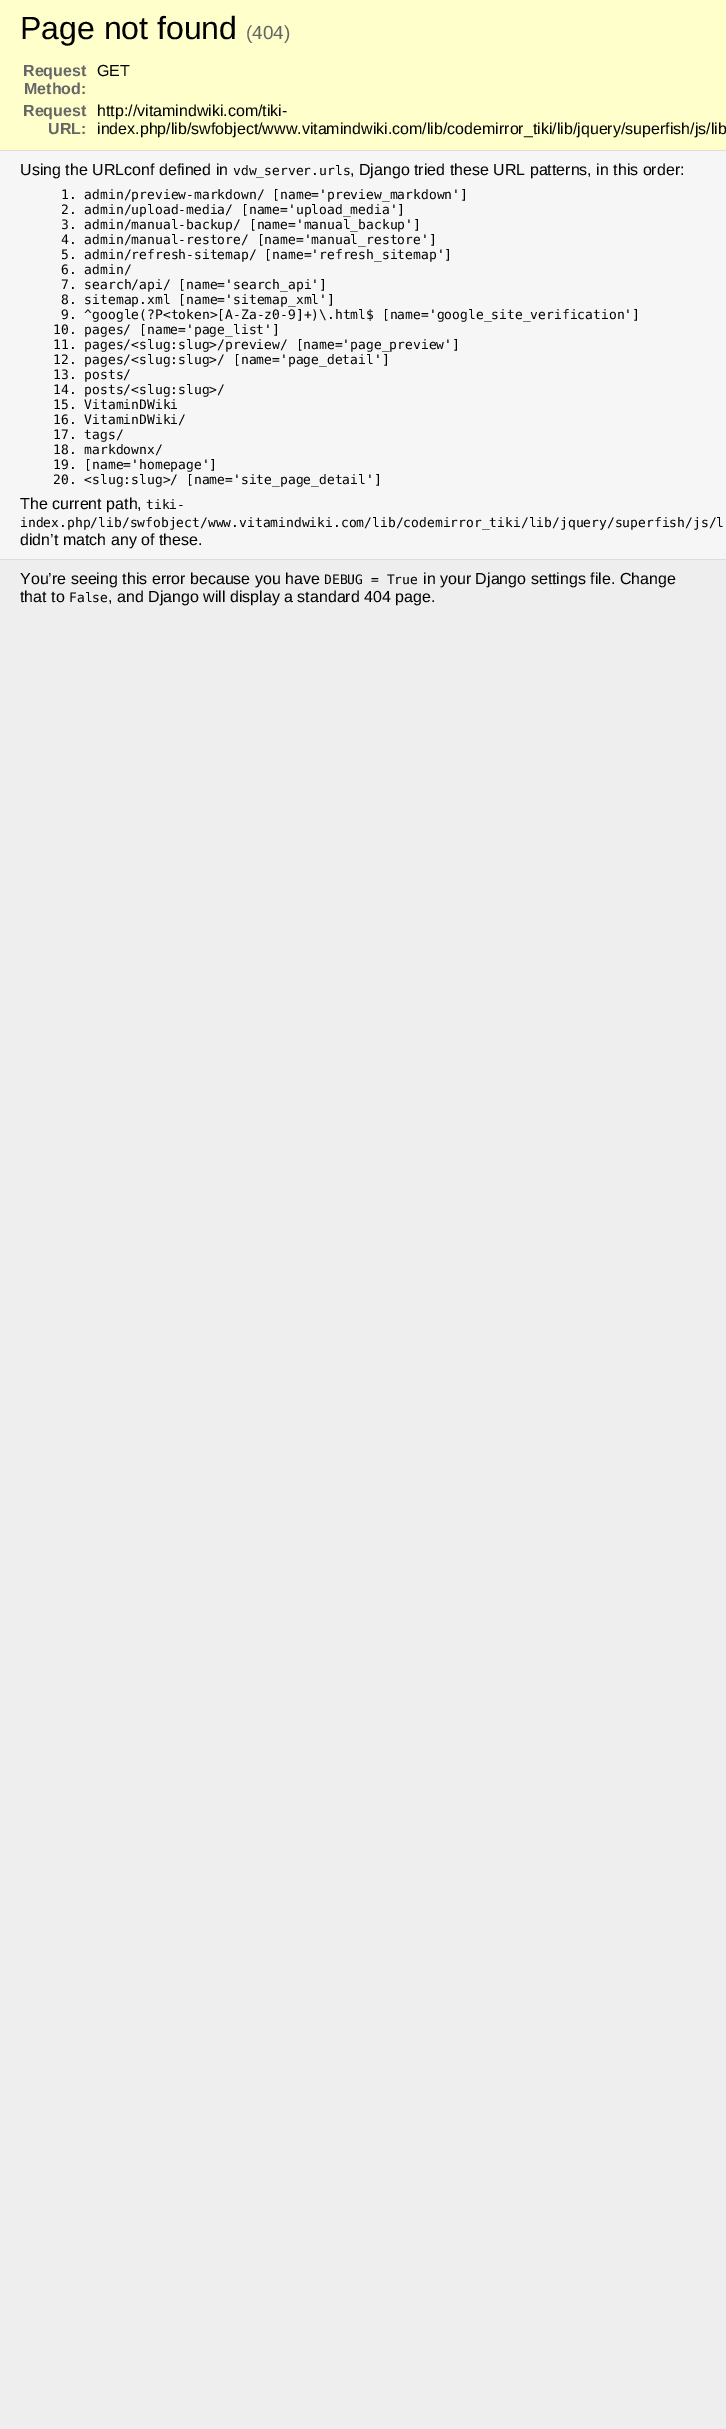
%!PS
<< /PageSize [726 2429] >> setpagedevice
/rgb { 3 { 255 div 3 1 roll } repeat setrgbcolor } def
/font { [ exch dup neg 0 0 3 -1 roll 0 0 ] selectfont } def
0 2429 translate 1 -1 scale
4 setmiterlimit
238 238 238 rgb
0 0 726 2429 rectfill
[
  [0 0 726 150 255 255 204]
  [0 150 726 1 221 221 221]
  [0 151 726 408 246 246 246]
  [0 559 726 1 221 221 221]
] { aload pop rgb rectfill } forall
/LiberationSans-Regular 32 font
0 0 0 rgb
20 39 moveto (Page not found) show
/LiberationSans-Regular 19 font
102 102 102 rgb
246 39 moveto (\(404\)) show
/LiberationSans-Bold 16 font
23 76 moveto (Request) show
24 94 moveto (Method:) show
/LiberationSans-Regular 16 font
0 0 0 rgb
97 76 moveto (GET) show
/LiberationSans-Bold 16 font
102 102 102 rgb
23 116 moveto (Request) show
48 134 moveto (URL:) show
/LiberationSans-Regular 16 font
0 0 0 rgb
[
  [(http://vitamindwiki.com/tiki-) 97 116]
  [(index.php/lib/swfobject/www.vitamindwiki.com/lib/codemirror_tiki/lib/jquery/superfish/js/lib) 97 134]
  [(Using the URLconf defined in) 20 175]
] { aload pop moveto show } forall
/DejaVuSansMono-Regular 13 font
233 175 moveto (vdw_server.urls) show
/LiberationSans-Regular 16 font
350 175 moveto (, Django tried these URL patterns, in this order:) show
/DejaVuSansMono-Regular 13 font
[
  [(1. admin/preview-markdown/ [name='preview_markdown']) 61 199]
  [(2. admin/upload-media/ [name='upload_media']) 61 214]
  [(3. admin/manual-backup/ [name='manual_backup']) 61 229]
  [(4. admin/manual-restore/ [name='manual_restore']) 61 244]
  [(5. admin/refresh-sitemap/ [name='refresh_sitemap']) 61 259]
  [(6. admin/) 61 274]
  [(7. search/api/ [name='search_api']) 61 289]
  [(8. sitemap.xml [name='sitemap_xml']) 61 304]
  [(9. ^google\(?P<token>[A-Za-z0-9]+\)\\.html$ [name='google_site_verification']) 61 319]
  [(10. pages/ [name='page_list']) 53 334]
  [(11. pages/<slug:slug>/preview/ [name='page_preview']) 53 349]
  [(12. pages/<slug:slug>/ [name='page_detail']) 53 364]
  [(13. posts/) 53 379]
  [(14. posts/<slug:slug>/) 53 394]
  [(15. VitaminDWiki) 53 409]
  [(16. VitaminDWiki/) 53 424]
  [(17. tags/) 53 439]
  [(18. markdownx/) 53 454]
  [(19. [name='homepage']) 53 469]
  [(20. <slug:slug>/ [name='site_page_detail']) 53 484]
] { aload pop moveto show } forall
/LiberationSans-Regular 16 font
20 509 moveto (The current path,) show
/DejaVuSansMono-Regular 13 font
146 509 moveto (tiki-) show
20 527 moveto (index.php/lib/swfobject/www.vitamindwiki.com/lib/codemirror_tiki/lib/jquery/superfish/js/l) show
/LiberationSans-Regular 16 font
20 545 moveto (didn’t match any of these.) show
20 584 moveto (You’re seeing this error because you have) show
/DejaVuSansMono-Regular 13 font
324 584 moveto (DEBUG = True) show
/LiberationSans-Regular 16 font
423 584 moveto (in your Django settings file. Change) show
20 602 moveto (that to) show
/DejaVuSansMono-Regular 13 font
69 602 moveto (False) show
/LiberationSans-Regular 16 font
108 602 moveto (, and Django will display a standard 404 page.) show
showpage
